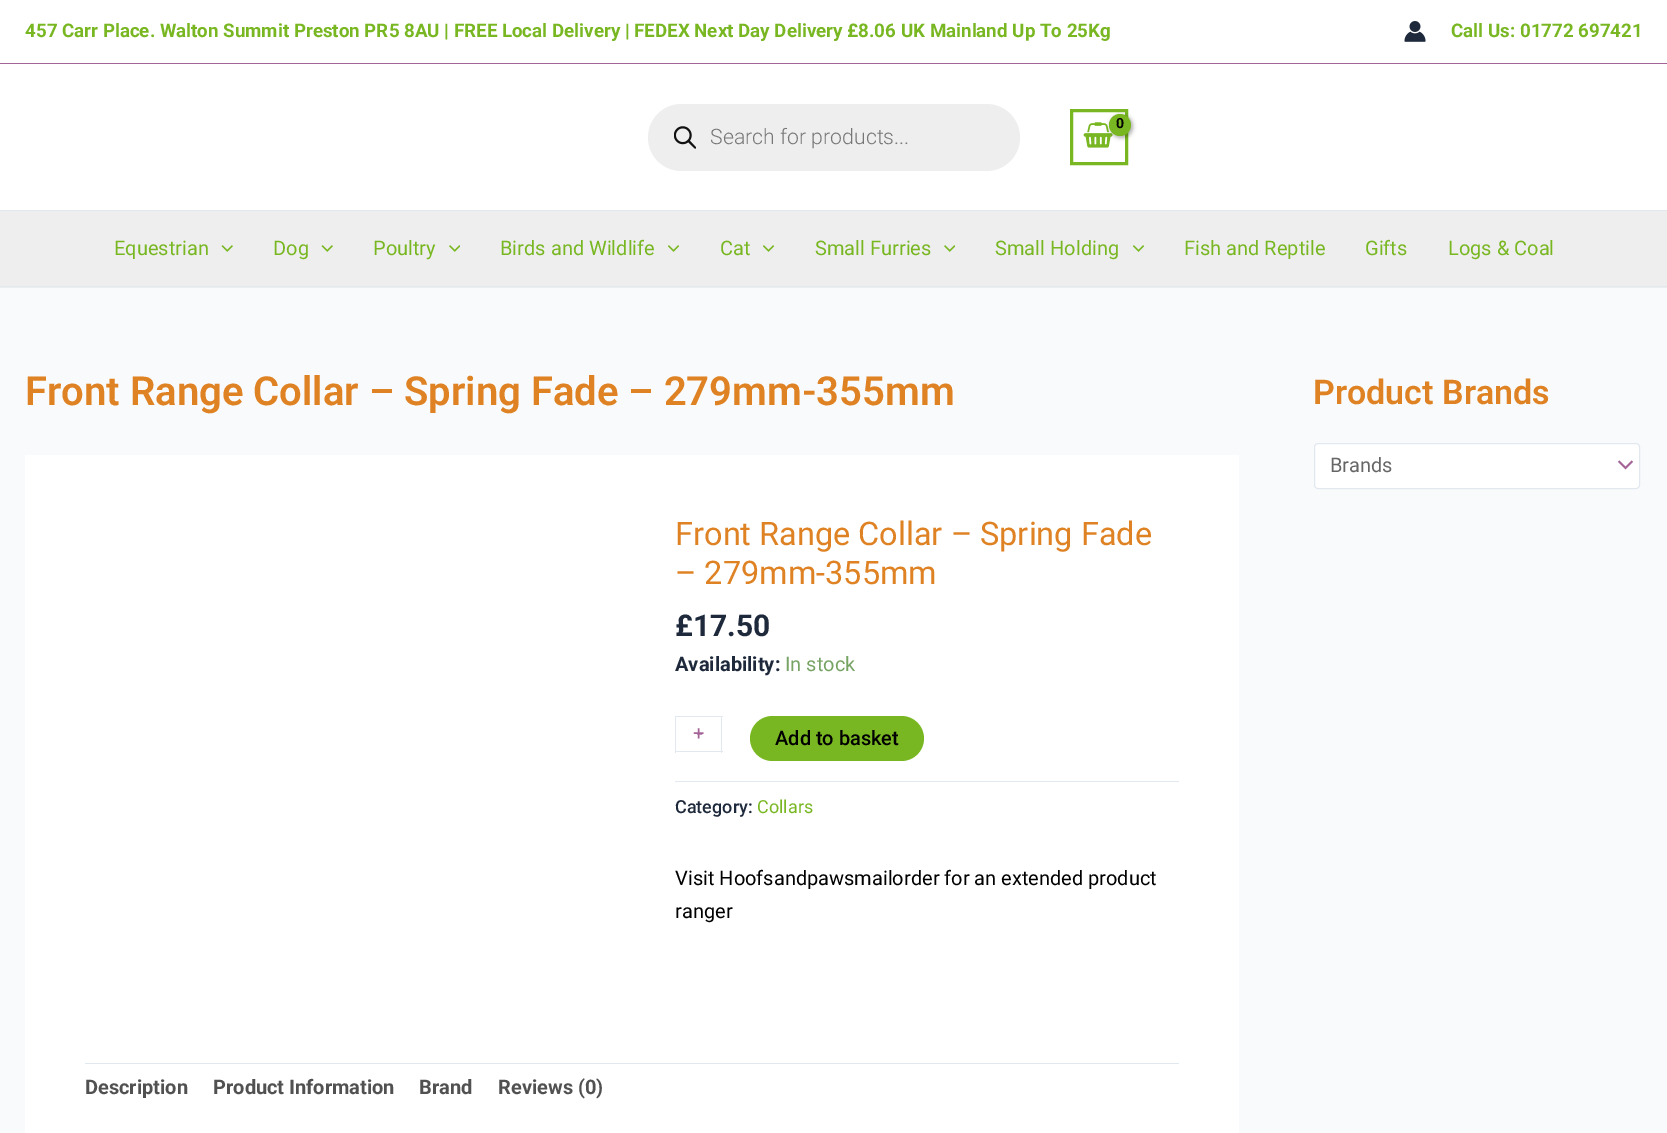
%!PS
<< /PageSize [1667 1133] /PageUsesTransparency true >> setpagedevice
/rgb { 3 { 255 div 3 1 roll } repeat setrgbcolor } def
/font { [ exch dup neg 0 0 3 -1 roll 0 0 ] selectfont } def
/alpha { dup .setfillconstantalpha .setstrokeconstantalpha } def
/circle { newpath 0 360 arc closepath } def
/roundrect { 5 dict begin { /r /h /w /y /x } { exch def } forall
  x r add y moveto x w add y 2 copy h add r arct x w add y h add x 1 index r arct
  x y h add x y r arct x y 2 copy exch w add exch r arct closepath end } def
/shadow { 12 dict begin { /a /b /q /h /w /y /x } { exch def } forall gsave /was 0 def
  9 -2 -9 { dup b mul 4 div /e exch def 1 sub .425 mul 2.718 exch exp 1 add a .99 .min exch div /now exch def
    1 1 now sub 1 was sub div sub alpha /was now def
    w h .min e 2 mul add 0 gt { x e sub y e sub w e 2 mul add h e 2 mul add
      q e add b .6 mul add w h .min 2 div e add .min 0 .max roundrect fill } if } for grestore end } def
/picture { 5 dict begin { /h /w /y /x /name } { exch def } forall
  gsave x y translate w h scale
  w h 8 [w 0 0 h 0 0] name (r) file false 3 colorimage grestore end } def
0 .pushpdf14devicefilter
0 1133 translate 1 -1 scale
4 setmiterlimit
249 250 251 rgb
0 0 1667 1133 rectfill
255 255 255 rgb
0 0 1667 63 rectfill
164 100 151 rgb
0 63 1667 1 rectfill
(img/1.rgb) 1404 21 22 21 picture
255 255 255 rgb
0 64 1667 146 rectfill
226 232 240 rgb
0 210 1667 1 rectfill
120 183 34 rgb
3 setlinewidth
1071.5 110.5 55 53 rectstroke
(img/2.rgb) 1083 122 30 26 picture
0 0 0 rgb
1110 115 23 23 11.5 2 0.3 shadow
120 183 34 rgb
1120 125 11 circle fill
238 238 238 rgb
648 104 372 67 33.5 roundrect fill
(img/3.rgb) 674 126 22 23 picture
0 211 1667 77 rectfill
226 232 240 rgb
0 286 1667 1 rectfill
(img/4.rgb) 221 245 12 7 picture
(img/4.rgb) 321 245 12 7 picture
(img/5.rgb) 449 245 11 7 picture
(img/6.rgb) 668 245 12 7 picture
(img/6.rgb) 763 245 12 7 picture
(img/5.rgb) 944 245 11 7 picture
(img/7.rgb) 1133 245 11 7 picture
[
  [25 455 1214 678 255 255 255]
  [675 716 48 1 226 232 240]
  [675 751 48 1 226 232 240]
  [721 716 1 37 226 232 240]
  [675 716 1 37 226 232 240]
] { aload pop rgb rectfill } forall
120 183 34 rgb
750 716 174 45 22.5 roundrect fill
226 232 240 rgb
675 781 504 1 rectfill
85 1063 1094 1 rectfill
255 255 255 rgb
1314 443 326 46 4 roundrect fill
(img/8.rgb) 1618 460 15 10 picture
226 232 240 rgb
1 setlinewidth
1314.5 443.5 325 45 3.5 roundrect stroke
/Roboto-Bold 18.75 font
120 183 34 rgb
25 37 moveto (457 Carr Place. Walton Summit Preston PR5 8AU | FREE Local Delivery | FEDEX Next Day Delivery £8.06 UK Mainland Up To 25Kg) show
1451 37 moveto (Call Us: 01772 697421) show
/Roboto-Bold 14 font
0 0 0 rgb
1116 128 moveto -1 0 (0) ashow
/Roboto-Light 21.25 font
119 119 119 rgb
710 144 moveto (Search for products...) show
/Roboto-Regular 20 font
120 183 34 rgb
[
  [(Equestrian) 114 255]
  [(Dog) 273 255]
  [(Poultry) 373 255]
  [(Birds and Wildlife) 500 255]
  [(Cat) 720 255]
  [(Small Furries) 815 255]
  [(Small Holding) 995 255]
  [(Fish and Reptile) 1184 255]
  [(Gifts) 1365 255]
  [(Logs & Coal) 1448 255]
] { aload pop moveto show } forall
/Roboto-SemiBold 40 font
222 130 36 rgb
25 405 moveto (Front Range Collar – Spring Fade – 279mm-355mm) show
/Roboto-Regular 32.5 font
675 545 moveto (Front Range Collar – Spring Fade) show
675 584 moveto (– 279mm-355mm) show
/Roboto-Bold 30 font
30 41 59 rgb
675 636 moveto (£17.50) show
/Roboto-Bold 20 font
675 671 moveto (Availability:) show
/Roboto-Regular 20 font
119 164 100 rgb
785 671 moveto (In stock) show
164 100 151 rgb
697 740 moveto (-) show
693 740 moveto (+) show
/Roboto-Medium 20 font
0 0 0 rgb
775 745 moveto (Add to basket) show
/Roboto-Medium 18 font
30 41 59 rgb
675 813 moveto (Category:) show
/Roboto-Regular 18 font
120 183 34 rgb
757 813 moveto (Collars) show
/Roboto-Regular 20 font
0 0 0 rgb
675 885 moveto (Visit Hoofsandpawsmailorder for an extended product) show
675 918 moveto (ranger) show
/Roboto-Bold 20 font
81 81 81 rgb
[
  [(Description) 85 1094]
  [(Product Information) 213 1094]
  [(Brand) 419 1094]
  [(Reviews \(0\)) 498 1094]
] { aload pop moveto show } forall
/Roboto-SemiBold 34 font
222 130 36 rgb
1313 404 moveto (Product Brands) show
/Roboto-Regular 20 font
102 102 102 rgb
1330 472 moveto (Brands) show
.poppdf14devicefilter showpage
